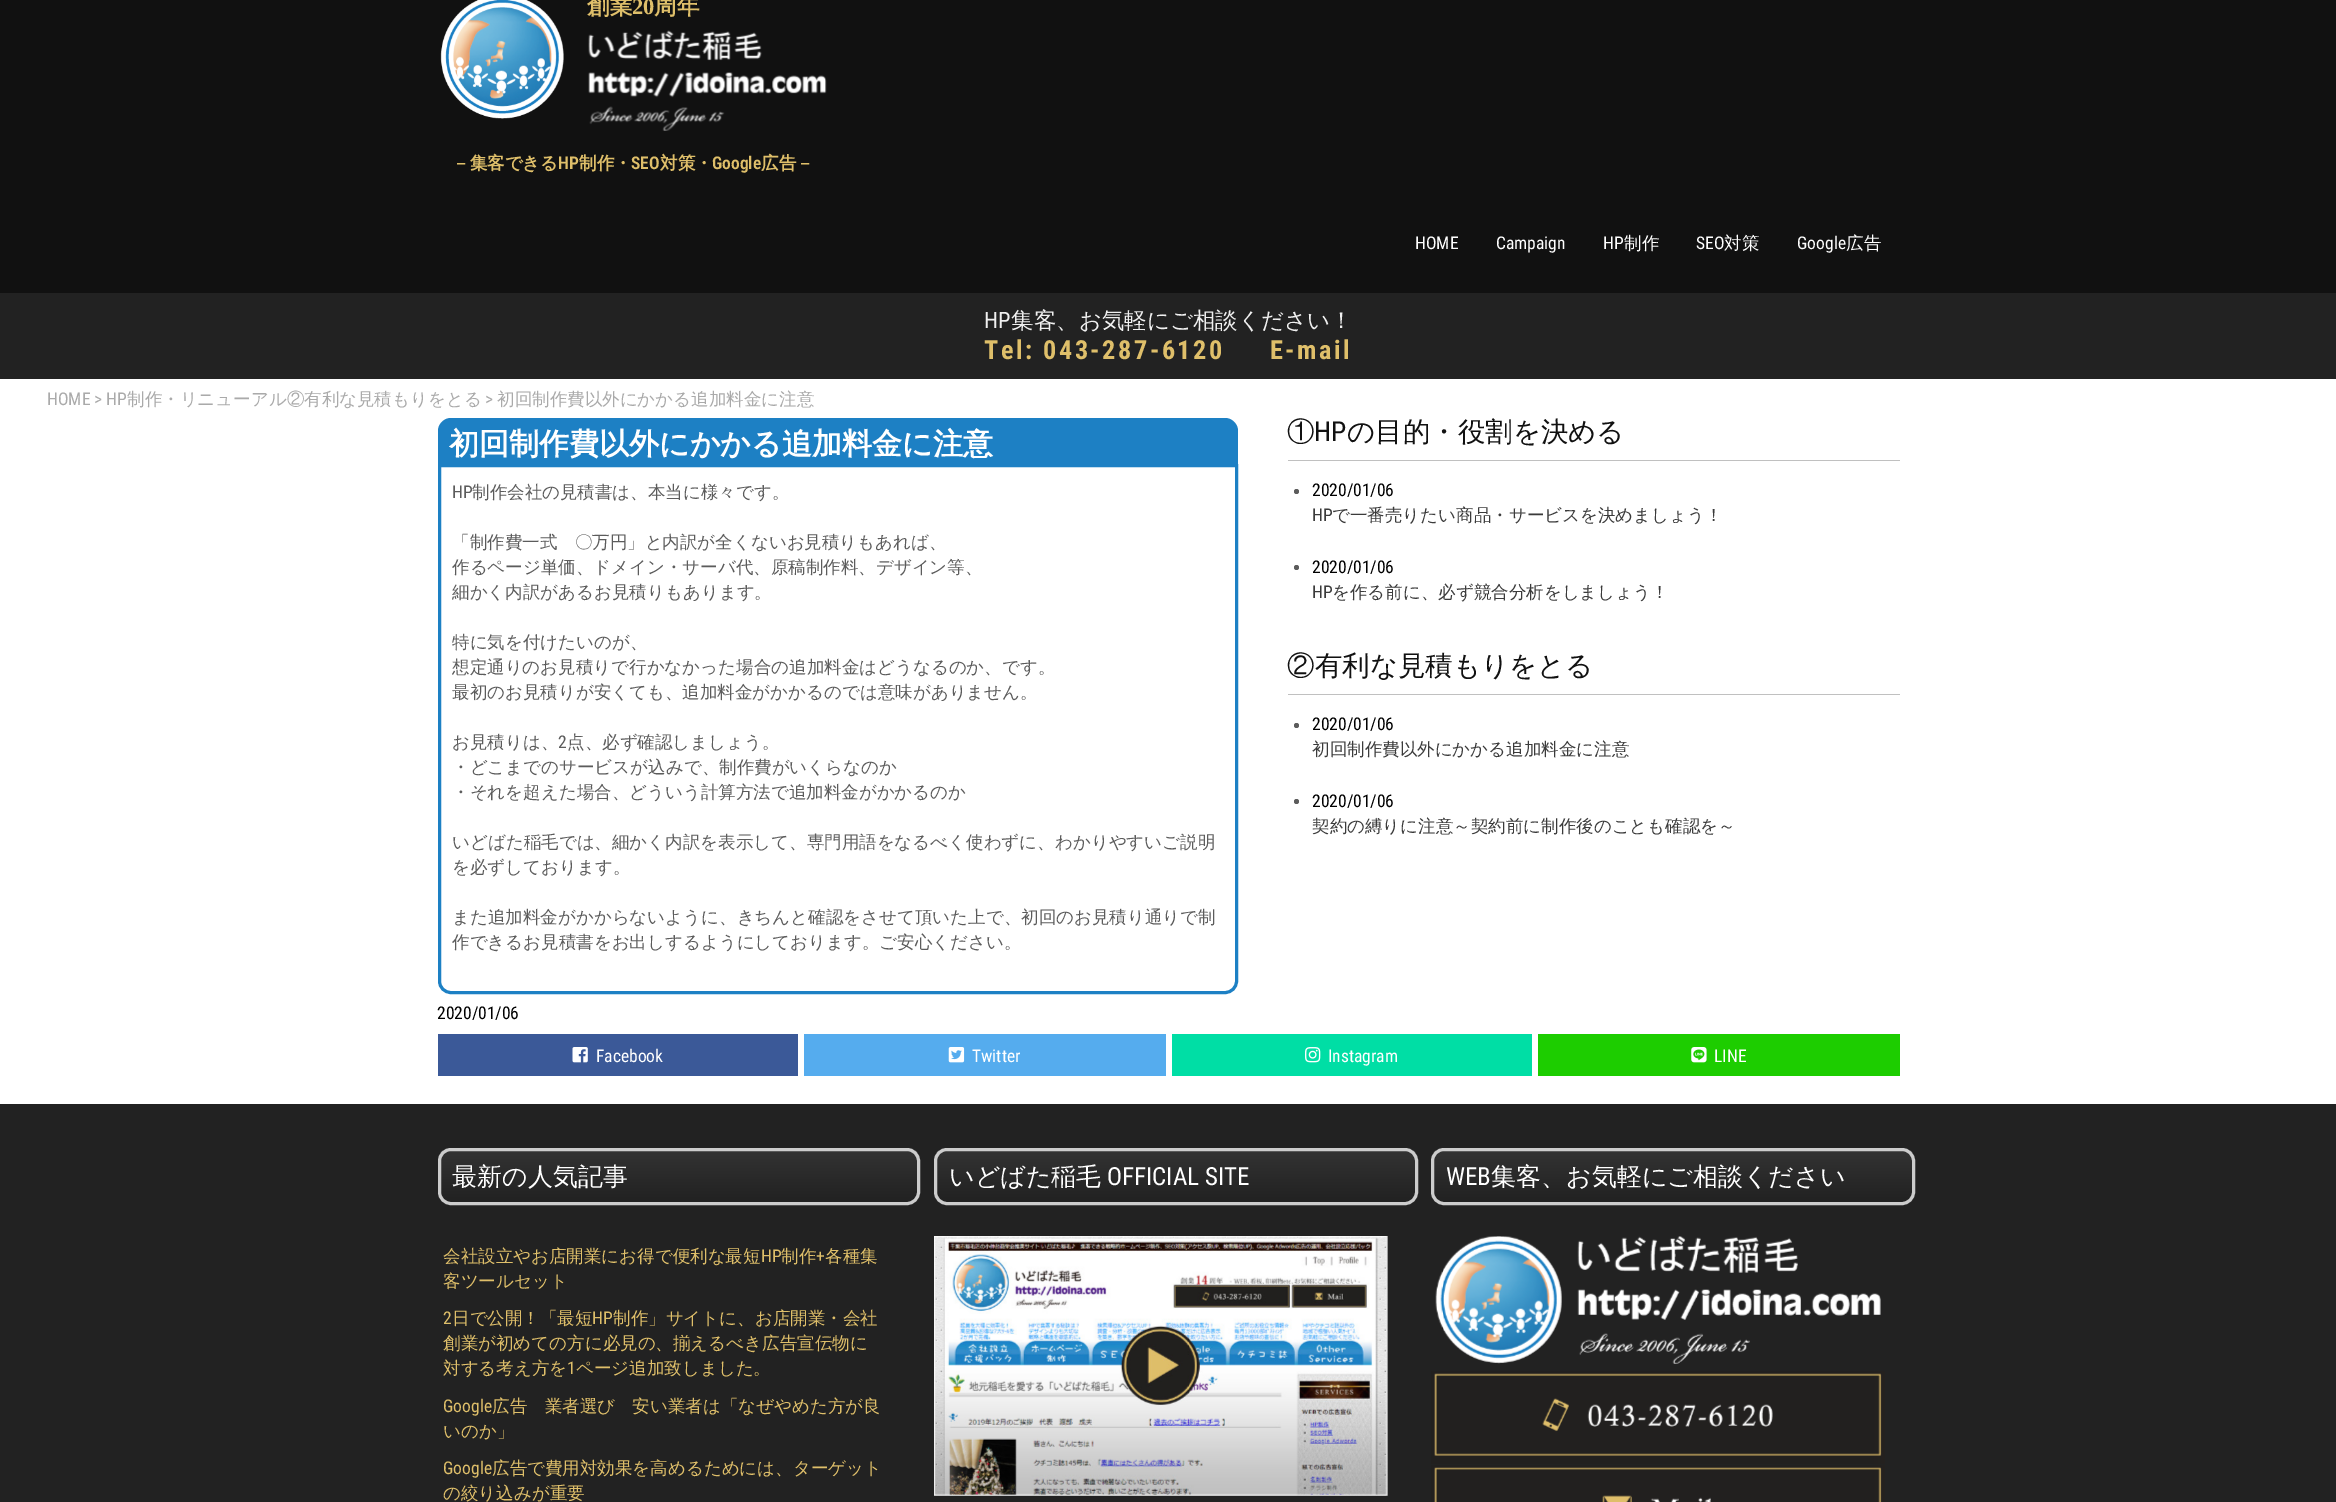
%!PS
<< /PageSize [2336 1502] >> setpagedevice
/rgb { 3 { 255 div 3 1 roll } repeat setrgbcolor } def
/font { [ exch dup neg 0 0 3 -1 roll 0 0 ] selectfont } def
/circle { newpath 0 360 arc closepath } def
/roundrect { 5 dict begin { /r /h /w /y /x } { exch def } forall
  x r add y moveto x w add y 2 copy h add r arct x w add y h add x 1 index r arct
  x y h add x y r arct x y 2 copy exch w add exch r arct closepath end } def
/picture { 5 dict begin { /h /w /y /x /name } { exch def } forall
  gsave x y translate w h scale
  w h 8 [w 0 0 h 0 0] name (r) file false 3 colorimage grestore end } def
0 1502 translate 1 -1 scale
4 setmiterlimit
255 255 255 rgb
0 0 2336 1502 rectfill
17 17 17 rgb
0 0 2336 293 rectfill
(img/1.rgb) 440 0 124 119 picture
(img/2.rgb) 588 30 239 101 picture
34 34 34 rgb
0 293 2336 86 rectfill
29 128 196 rgb
451 418 moveto 1225 418 lineto 1232 418 1238 424 1238 431 curveto 1238 464 lineto 438 464 lineto 438 431 lineto 438 424 444 418 451 418 curveto closepath fill
3 setlinewidth
439.5 465.5 moveto 1236.5 465.5 lineto 1236.5 981 lineto 1236.5 987.5 1231.5 992.5 1225 992.5 curveto 451 992.5 lineto 444.5 992.5 439.5 987.5 439.5 981 curveto closepath stroke
192 192 192 rgb
1288 460 612 1 rectfill
92 92 92 rgb
1296.5 491.5 2.5 circle fill
1296.5 567.5 2.5 circle fill
192 192 192 rgb
1288 694 612 1 rectfill
92 92 92 rgb
1296.5 725.5 2.5 circle fill
1296.5 801.5 2.5 circle fill
59 89 152 rgb
438 1034 360 42 rectfill
(img/3.rgb) 572 1047 16 16 picture
85 172 238 rgb
804 1034 362 42 rectfill
(img/4.rgb) 948 1047 17 16 picture
0 222 165 rgb
1172 1034 360 42 rectfill
(img/5.rgb) 1305 1047 16 16 picture
29 205 0 rgb
1538 1034 362 42 rectfill
(img/6.rgb) 1691 1047 16 16 picture
34 34 34 rgb
0 1104 2336 398 rectfill
gsave
438 1148 482 57 13 roundrect clip newpath
gsave 438 1150 moveto 920 1150 lineto 920 1203 lineto 438 1203 lineto closepath clip newpath
<< /ShadingType 2 /ColorSpace /DeviceRGB /Coords [679 1203 679 1150] /Extend [true true] /Function << /FunctionType 2 /Domain [0 1] /C0 [0.129 0.129 0.129] /C1 [0.2 0.2 0.2] /N 1 >> >> shfill grestore
grestore
204 204 204 rgb
439.5 1149.5 479 54 11.5 roundrect stroke
gsave
934 1148 484 57 13 roundrect clip newpath
gsave 934 1150 moveto 1418 1150 lineto 1418 1203 lineto 934 1203 lineto closepath clip newpath
<< /ShadingType 2 /ColorSpace /DeviceRGB /Coords [1176 1203 1176 1150] /Extend [true true] /Function << /FunctionType 2 /Domain [0 1] /C0 [0.129 0.129 0.129] /C1 [0.2 0.2 0.2] /N 1 >> >> shfill grestore
grestore
935.5 1149.5 481 54 11.5 roundrect stroke
(img/7.rgb) 934 1236 454 260 picture
gsave
1431 1148 484 57 13 roundrect clip newpath
gsave 1431 1150 moveto 1915 1150 lineto 1915 1203 lineto 1431 1203 lineto closepath clip newpath
<< /ShadingType 2 /ColorSpace /DeviceRGB /Coords [1673 1203 1673 1150] /Extend [true true] /Function << /FunctionType 2 /Domain [0 1] /C0 [0.129 0.129 0.129] /C1 [0.2 0.2 0.2] /N 1 >> >> shfill grestore
grestore
1432.5 1149.5 481 54 11.5 roundrect stroke
(img/8.rgb) 1435 1236 446 128 picture
gsave 1431 1371 moveto 1885 1371 lineto 1885 1464 lineto 1431 1464 lineto closepath clip newpath
<< /ShadingType 2 /ColorSpace /DeviceRGB /Coords [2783 1418 1422 1418] /Extend [true true] /Function << /FunctionType 3 /Domain [0 1] /Functions [<< /FunctionType 2 /Domain [0 1] /C0 [0.725 0.624 0.361] /C1 [0.486 0.376 0.188] /N 1 >> << /FunctionType 2 /Domain [0 1] /C0 [0.486 0.376 0.188] /C1 [0.133 0.125 0.122] /N 1 >> << /FunctionType 2 /Domain [0 1] /C0 [0.133 0.125 0.122] /C1 [0.133 0.125 0.122] /N 1 >>] /Bounds [0.33 0.67] /Encode [0 1 0 1 0 1] >> >> shfill grestore
(img/9.rgb) 1434 1373 448 83 picture
gsave 1431 1465 moveto 1885 1465 lineto 1885 1502 lineto 1431 1502 lineto closepath clip newpath
<< /ShadingType 2 /ColorSpace /DeviceRGB /Coords [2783 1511 1422 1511] /Extend [true true] /Function << /FunctionType 3 /Domain [0 1] /Functions [<< /FunctionType 2 /Domain [0 1] /C0 [0.725 0.624 0.361] /C1 [0.486 0.376 0.188] /N 1 >> << /FunctionType 2 /Domain [0 1] /C0 [0.486 0.376 0.188] /C1 [0.133 0.125 0.122] /N 1 >> << /FunctionType 2 /Domain [0 1] /C0 [0.133 0.125 0.122] /C1 [0.133 0.125 0.122] /N 1 >>] /Bounds [0.33 0.67] /Encode [0 1 0 1 0 1] >> >> shfill grestore
(img/10.rgb) 1434 1467 448 35 picture
/WenQuanYiZenHei-Bold 22.5 font
223 191 106 rgb
587 14 moveto (創業) show
/LiberationSerif-Bold 22.5 font
632 14 moveto (20) show
/WenQuanYiZenHei-Bold 22.5 font
654 14 moveto (周年) show
/WenQuanYiZenHei-Bold 17.5 font
452 169 moveto (－集客できる) show
/RobotoCondensed-SemiBold 17.5 font
558 169 moveto (HP) show
/WenQuanYiZenHei-Bold 17.5 font
579 169 moveto (制作・) show
/RobotoCondensed-SemiBold 17.5 font
631 169 moveto (SEO) show
/WenQuanYiZenHei-Bold 17.5 font
660 169 moveto (対策・) show
/RobotoCondensed-SemiBold 17.5 font
712 169 moveto (Google) show
/WenQuanYiZenHei-Bold 17.5 font
761 169 moveto (広告－) show
/RobotoCondensed-Regular 17.5 font
255 255 255 rgb
[
  [(HOME) 1415 249]
  [(Campaign) 1496 249]
  [(HP) 1603 249]
] { aload pop moveto show } forall
/WenQuanYiZenHei-Medium 17.5 font
1624 249 moveto (制作) show
/RobotoCondensed-Regular 17.5 font
1696 249 moveto (SEO) show
/WenQuanYiZenHei-Medium 17.5 font
1724 249 moveto (対策) show
/RobotoCondensed-Regular 17.5 font
1797 249 moveto (Google) show
/WenQuanYiZenHei-Medium 17.5 font
1846 249 moveto (広告) show
/RobotoCondensed-Regular 22.5 font
240 240 240 rgb
984 328 moveto (HP) show
/WenQuanYiZenHei-Medium 22.5 font
1011 328 moveto (集客、お気軽にご相談ください！) show
/RobotoCondensed-Bold 26.25 font
223 191 106 rgb
984 359 moveto 2.5 0 (Tel: 043-287-6120) ashow
1270 359 moveto 2.5 0 (E-mail) ashow
/RobotoCondensed-Regular 17.5 font
170 170 170 rgb
47 405 moveto (HOME > HP) show
/WenQuanYiZenHei-Medium 17.5 font
127 405 moveto (制作・リニューアル②有利な見積もりをとる) show
/RobotoCondensed-Regular 17.5 font
485 405 moveto (>) show
/WenQuanYiZenHei-Medium 17.5 font
497 405 moveto (初回制作費以外にかかる追加料金に注意) show
/WenQuanYiZenHei-Bold 30 font
255 255 255 rgb
449 454 moveto (初回制作費以外にかかる追加料金に注意) show
/RobotoCondensed-Regular 17.5 font
92 92 92 rgb
452 498 moveto (HP) show
/WenQuanYiZenHei-Medium 17.5 font
[
  [(制作会社の見積書は、本当に様々です。) 472 498]
  [(「制作費一式　〇万円」と内訳が全くないお見積りもあれば、) 452 548]
  [(作るページ単価、ドメイン・サーバ代、原稿制作料、デザイン等、) 452 573]
  [(細かく内訳があるお見積りもあります。) 452 598]
  [(特に気を付けたいのが、) 452 648]
  [(想定通りのお見積りで行かなかった場合の追加料金はどうなるのか、です。) 452 673]
  [(最初のお見積りが安くても、追加料金がかかるのでは意味がありません。) 452 698]
  [(お見積りは、) 452 748]
] { aload pop moveto show } forall
/RobotoCondensed-Regular 17.5 font
558 748 moveto (2) show
/WenQuanYiZenHei-Medium 17.5 font
[
  [(点、必ず確認しましょう。) 567 748]
  [(・どこまでのサービスが込みで、制作費がいくらなのか) 452 773]
  [(・それを超えた場合、どういう計算方法で追加料金がかかるのか) 452 798]
  [(いどばた稲毛では、細かく内訳を表示して、専門用語をなるべく使わずに、わかりやすいご説明) 452 848]
  [(を必ずしております。) 452 873]
  [(また追加料金がかからないように、きちんと確認をさせて頂いた上で、初回のお見積り通りで制) 452 923]
  [(作できるお見積書をお出しするようにしております。ご安心ください。) 452 948]
] { aload pop moveto show } forall
/RobotoCondensed-Regular 17.5 font
0 0 0 rgb
437 1019 moveto (2020/01/06) show
/WenQuanYiZenHei-Medium 27.5 font
17 17 17 rgb
1287 441 moveto (①) show
/RobotoCondensed-Regular 27.5 font
1314 441 moveto (HP) show
/WenQuanYiZenHei-Medium 27.5 font
1347 441 moveto (の目的・役割を決める) show
/RobotoCondensed-Regular 17.5 font
0 0 0 rgb
1312 496 moveto (2020/01/06) show
59 59 59 rgb
1312 521 moveto (HP) show
/WenQuanYiZenHei-Medium 17.5 font
1332 521 moveto (で一番売りたい商品・サービスを決めましょう！) show
/RobotoCondensed-Regular 17.5 font
0 0 0 rgb
1312 573 moveto (2020/01/06) show
59 59 59 rgb
1312 598 moveto (HP) show
/WenQuanYiZenHei-Medium 17.5 font
1332 598 moveto (を作る前に、必ず競合分析をしましょう！) show
/WenQuanYiZenHei-Medium 27.5 font
17 17 17 rgb
1287 675 moveto (②有利な見積もりをとる) show
/RobotoCondensed-Regular 17.5 font
0 0 0 rgb
1312 730 moveto (2020/01/06) show
/WenQuanYiZenHei-Medium 17.5 font
59 59 59 rgb
1312 755 moveto (初回制作費以外にかかる追加料金に注意) show
/RobotoCondensed-Regular 17.5 font
0 0 0 rgb
1312 807 moveto (2020/01/06) show
/WenQuanYiZenHei-Medium 17.5 font
59 59 59 rgb
1312 832 moveto (契約の縛りに注意～契約前に制作後のことも確認を～) show
/RobotoCondensed-Regular 17.5 font
255 255 255 rgb
[
  [(Facebook) 596 1062]
  [(Twitter) 972 1062]
  [(Instagram) 1328 1062]
  [(LINE) 1714 1062]
] { aload pop moveto show } forall
/WenQuanYiZenHei-Medium 25 font
452 1185 moveto (最新の人気記事) show
/WenQuanYiZenHei-Medium 17.5 font
223 191 106 rgb
443 1262 moveto (会社設立やお店開業にお得で便利な最短) show
/RobotoCondensed-Regular 17.5 font
761 1262 moveto (HP) show
/WenQuanYiZenHei-Medium 17.5 font
781 1262 moveto (制作) show
/RobotoCondensed-Regular 17.5 font
816 1262 moveto (+) show
/WenQuanYiZenHei-Medium 17.5 font
825 1262 moveto (各種集) show
443 1287 moveto (客ツールセット) show
/RobotoCondensed-Regular 17.5 font
443 1324 moveto (2) show
/WenQuanYiZenHei-Medium 17.5 font
452 1324 moveto (日で公開！「最短) show
/RobotoCondensed-Regular 17.5 font
592 1324 moveto (HP) show
/WenQuanYiZenHei-Medium 17.5 font
[
  [(制作」サイトに、お店開業・会社) 613 1324]
  [(創業が初めての方に必見の、揃えるべき広告宣伝物に) 443 1349]
  [(対する考え方を) 443 1374]
] { aload pop moveto show } forall
/RobotoCondensed-Regular 17.5 font
567 1374 moveto (1) show
/WenQuanYiZenHei-Medium 17.5 font
576 1374 moveto (ページ追加致しました。) show
/RobotoCondensed-Regular 17.5 font
443 1412 moveto (Google) show
/WenQuanYiZenHei-Medium 17.5 font
492 1412 moveto (広告　業者選び　安い業者は「なぜやめた方が良) show
443 1437 moveto (いのか」) show
/RobotoCondensed-Regular 17.5 font
443 1474 moveto (Google) show
/WenQuanYiZenHei-Medium 17.5 font
492 1474 moveto (広告で費用対効果を高めるためには、ターゲット) show
443 1499 moveto (の絞り込みが重要) show
/WenQuanYiZenHei-Medium 25 font
255 255 255 rgb
949 1185 moveto (いどばた稲毛) show
/RobotoCondensed-Regular 25 font
1107 1185 moveto (OFFICIAL SITE) show
1446 1185 moveto (WEB) show
/WenQuanYiZenHei-Medium 25 font
1491 1185 moveto (集客、お気軽にご相談ください) show
showpage
